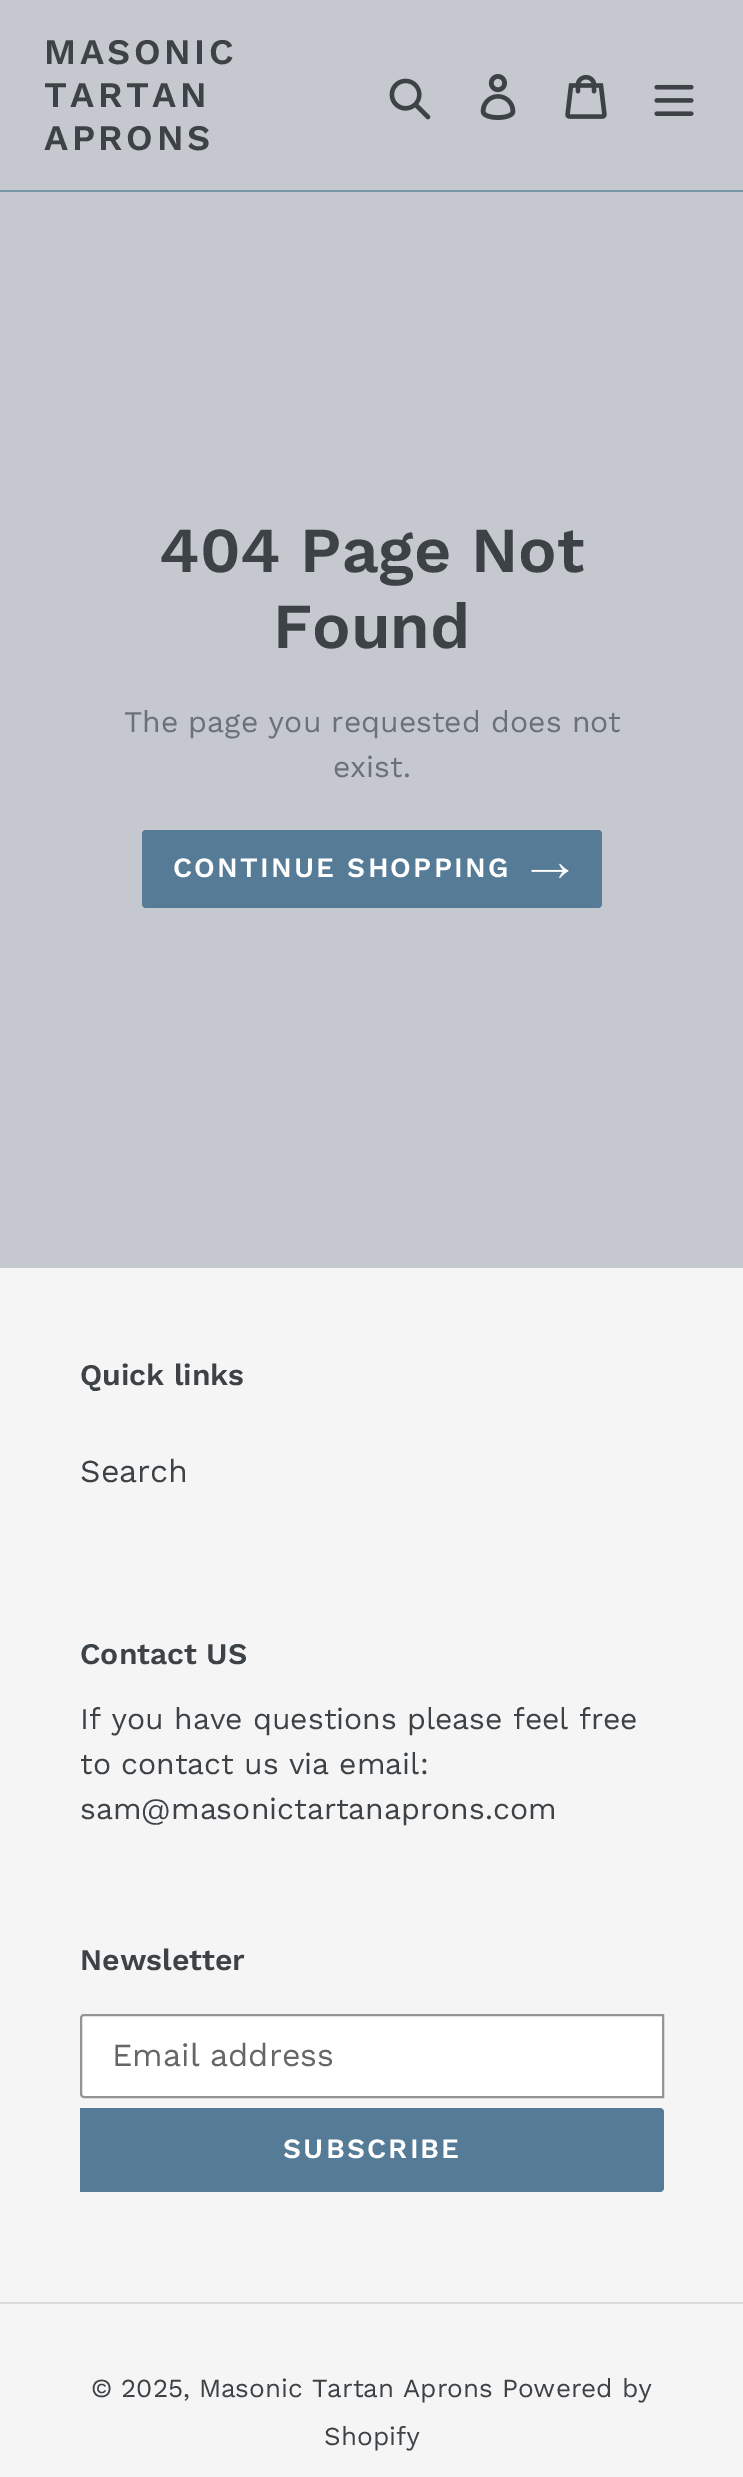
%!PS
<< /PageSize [743 2477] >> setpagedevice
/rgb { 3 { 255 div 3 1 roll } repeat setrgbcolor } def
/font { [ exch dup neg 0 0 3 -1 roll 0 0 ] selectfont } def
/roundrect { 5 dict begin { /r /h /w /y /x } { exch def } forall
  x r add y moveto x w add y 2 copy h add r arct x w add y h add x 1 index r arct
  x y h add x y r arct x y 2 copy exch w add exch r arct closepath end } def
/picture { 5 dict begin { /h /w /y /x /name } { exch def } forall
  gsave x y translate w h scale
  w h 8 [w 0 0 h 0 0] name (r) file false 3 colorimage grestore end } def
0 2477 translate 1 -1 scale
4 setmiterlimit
197 200 206 rgb
0 0 743 2477 rectfill
119 150 168 rgb
0 190 743 2 rectfill
(img/1.rgb) 389 78 42 42 picture
(img/2.rgb) 480 74 36 46 picture
(img/3.rgb) 565 74 42 45 picture
(img/4.rgb) 654 84 40 32 picture
85 123 151 rgb
142 830 460 78 4 roundrect fill
(img/5.rgb) 531 863 38 15 picture
245 245 245 rgb
0 1268 743 1209 rectfill
255 255 255 rgb
84 2015 moveto 663 2015 lineto 663 2097 lineto 84 2097 lineto 82.5 2097 81 2095.5 81 2094 curveto 81 2018 lineto 81 2016.5 82.5 2015 84 2015 curveto closepath gsave fill grestore
148 148 148 rgb
2 setlinewidth
stroke
85 123 151 rgb
80 2108 moveto 660 2108 lineto 662 2108 664 2110 664 2112 curveto 664 2188 lineto 664 2190 662 2192 660 2192 curveto 80 2192 lineto closepath fill
220 220 220 rgb
0 2302 743 2 rectfill
/WorkSans-SemiBold 36 font
61 66 70 rgb
44 64 moveto 3.5 0 (MASONIC) ashow
44 107 moveto 3.5 0 (TARTAN) ashow
44 150 moveto 3.5 0 (APRONS) ashow
/WorkSans-SemiBold 64 font
159 572 moveto (404 Page Not) show
273 648 moveto (Found) show
/WorkSans-Regular 30 font
105 114 123 rgb
124 732 moveto (The page you requested does not) show
333 777 moveto (exist.) show
/WorkSans-SemiBold 28 font
255 255 255 rgb
173 877 moveto 2.25 0 (CONTINUE SHOPPING) ashow
/WorkSans-SemiBold 30 font
61 66 70 rgb
80 1385 moveto (Quick links) show
/WorkSans-Regular 32 font
80 1482 moveto (Search) show
/WorkSans-SemiBold 30 font
80 1664 moveto (Contact US) show
/WorkSans-Regular 30 font
[
  [(If you have questions please feel free) 80 1729]
  [(to contact us via email:) 80 1774]
  [(sam@masonictartanaprons.com) 80 1819]
] { aload pop moveto show } forall
/WorkSans-SemiBold 30 font
80 1970 moveto (Newsletter) show
/WorkSans-Regular 32 font
102 102 102 rgb
112 2066 moveto (Email address) show
/WorkSans-SemiBold 28 font
255 255 255 rgb
283 2158 moveto 2.25 0 (SUBSCRIBE) ashow
/WorkSans-Regular 26 font
61 66 70 rgb
91 2397 moveto (© 2025, Masonic Tartan Aprons Powered by) show
324 2445 moveto (Shopify) show
showpage
